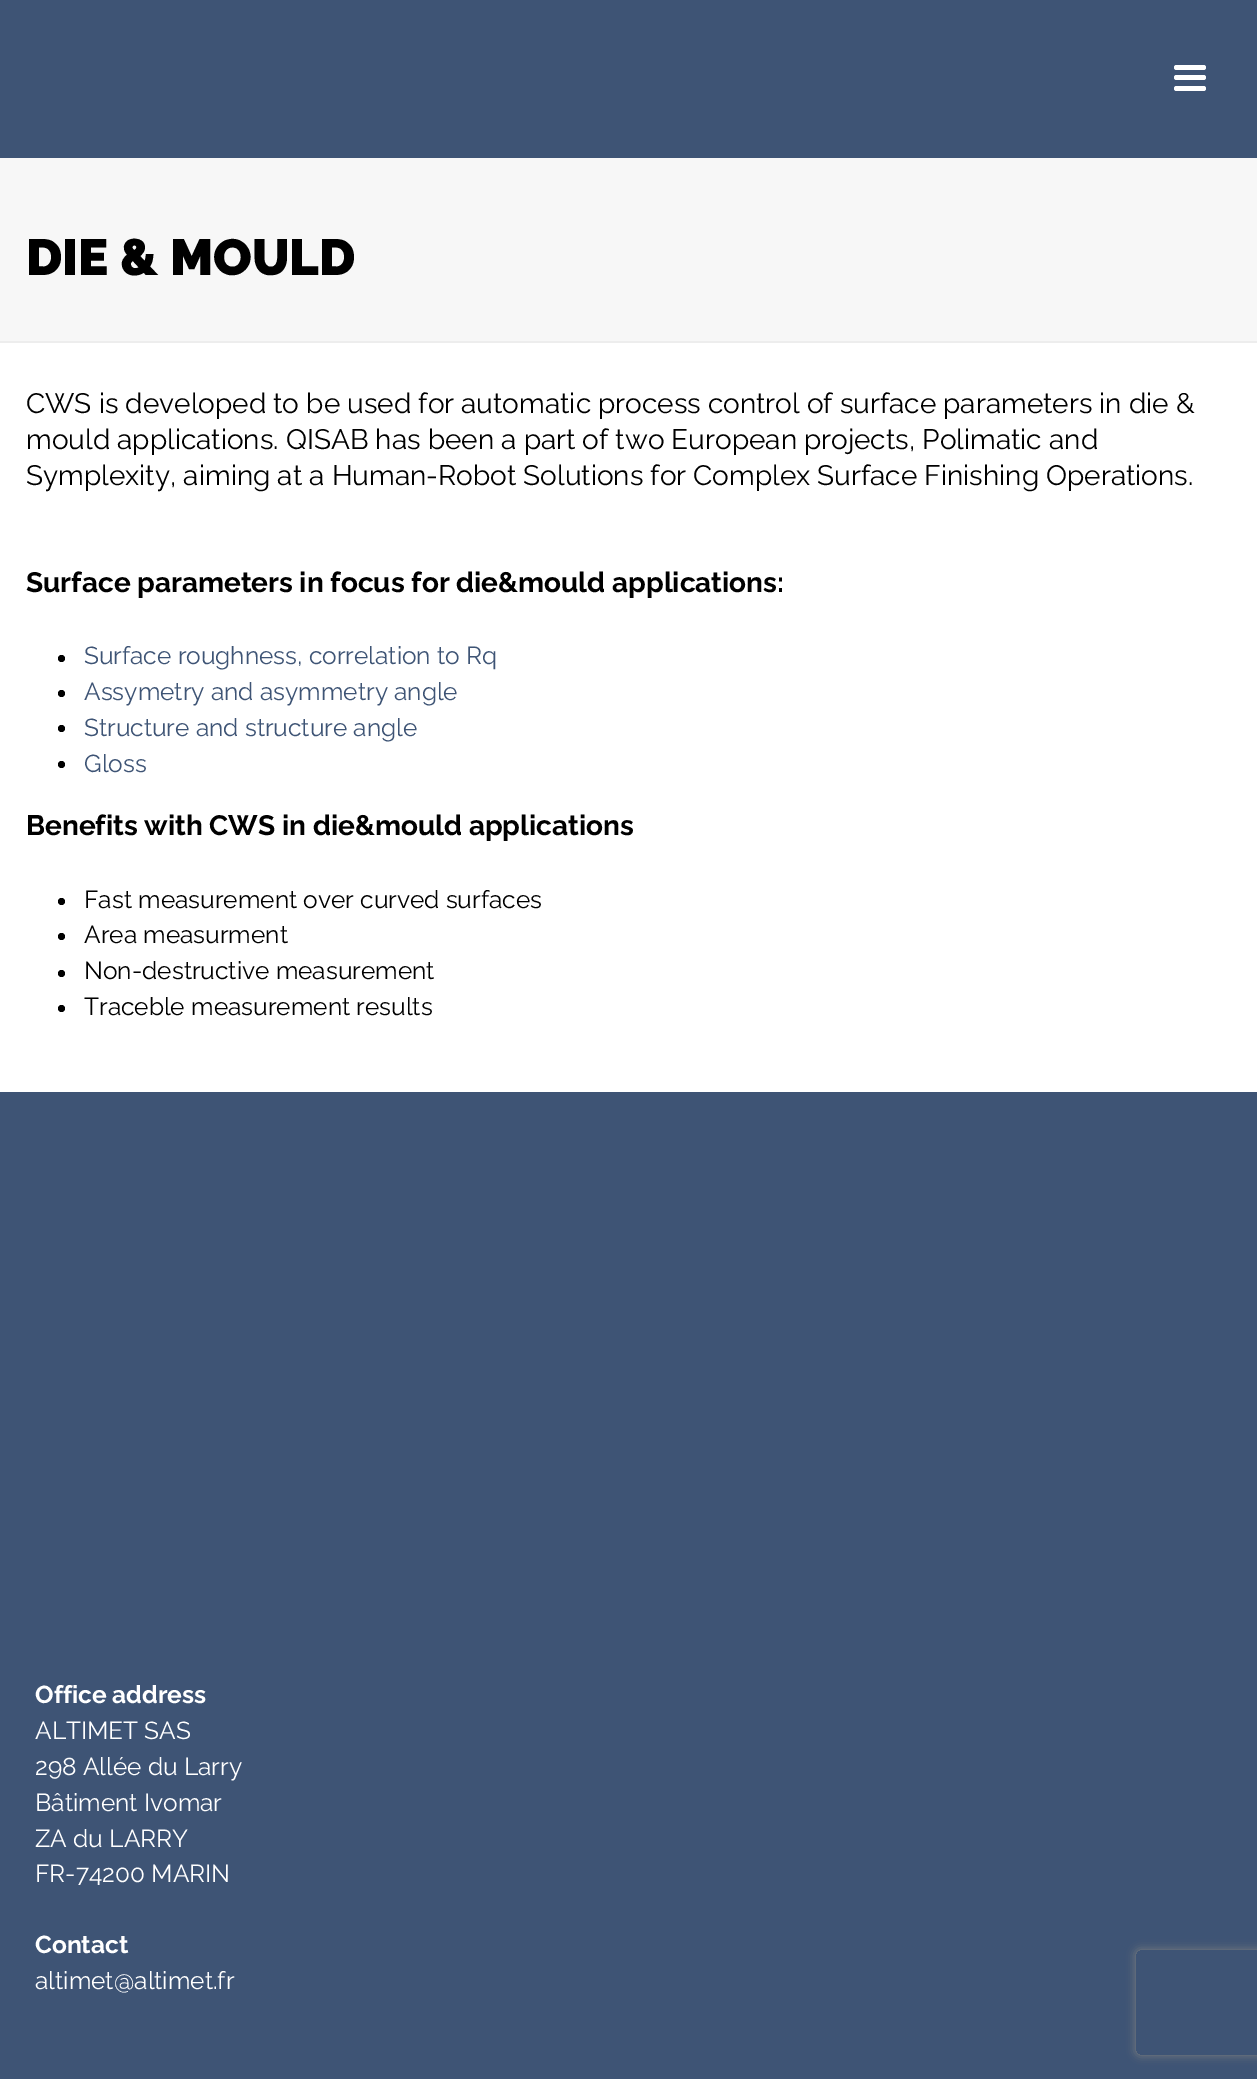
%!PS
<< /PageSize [1257 2079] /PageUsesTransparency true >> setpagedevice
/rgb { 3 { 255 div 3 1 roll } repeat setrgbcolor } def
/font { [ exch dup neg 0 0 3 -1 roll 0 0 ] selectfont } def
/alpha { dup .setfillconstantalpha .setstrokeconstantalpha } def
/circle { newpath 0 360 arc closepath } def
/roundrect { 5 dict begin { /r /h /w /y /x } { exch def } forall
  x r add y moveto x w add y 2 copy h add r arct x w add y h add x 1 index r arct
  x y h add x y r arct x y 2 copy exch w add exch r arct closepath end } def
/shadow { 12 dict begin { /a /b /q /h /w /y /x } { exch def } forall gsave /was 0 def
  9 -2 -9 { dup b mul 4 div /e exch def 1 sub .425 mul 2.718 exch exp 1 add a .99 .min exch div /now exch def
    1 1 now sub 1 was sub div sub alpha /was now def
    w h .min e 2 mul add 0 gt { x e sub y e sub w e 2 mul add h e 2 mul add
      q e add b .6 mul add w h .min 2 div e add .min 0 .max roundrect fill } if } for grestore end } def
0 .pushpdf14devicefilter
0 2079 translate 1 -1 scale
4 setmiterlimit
255 255 255 rgb
0 0 1257 2079 rectfill
[
  [0 158 1257 183 247 247 247]
  [0 341 1257 2 237 237 237]
  [0 0 1257 158 62 84 117]
] { aload pop rgb rectfill } forall
255 255 255 rgb
1174 65 32 5 2.5 roundrect fill
1174 75 32 5 2.5 roundrect fill
1174 86 32 5 2.5 roundrect fill
0 0 0 rgb
61.5 658.5 3.5 circle fill
61.5 693.5 3.5 circle fill
61.5 728.5 3.5 circle fill
61.5 764.5 3.5 circle fill
61.5 901.5 3.5 circle fill
61.5 936.5 3.5 circle fill
61.5 973.5 3.5 circle fill
61.5 1008.5 3.5 circle fill
62 84 117 rgb
0 1092 1257 987 rectfill
gsave
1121 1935 moveto 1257 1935 lineto 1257 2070 lineto 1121 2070 lineto closepath 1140 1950 moveto 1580 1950 lineto 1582 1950 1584 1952 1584 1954 curveto 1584 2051 lineto 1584 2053 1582 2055 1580 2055 curveto 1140 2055 lineto 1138 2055 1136 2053 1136 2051 curveto 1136 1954 lineto 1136 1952 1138 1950 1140 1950 curveto closepath eoclip newpath
128 128 128 rgb
1136 1950 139 105 4 4.5 1 shadow
grestore
/Raleway-Black 50.75 font
0 0 0 rgb
26 275 moveto (DIE & MOULD) show
/Raleway-Regular 28 font
[
  [(CWS is developed to be used for automatic process control of surface parameters in die &) 26 413]
  [(mould applications. QISAB has been a part of two European projects, Polimatic and) 26 449]
  [(Symplexity, aiming at a Human-Robot Solutions for Complex Surface Finishing Operations.) 26 485]
] { aload pop moveto show } forall
/Raleway-Bold 28 font
26 592 moveto (Surface parameters in focus for die&mould applications:) show
/Raleway-Regular 24.5 font
62 84 117 rgb
[
  [(Surface roughness, correlation to Rq) 84 664]
  [(Assymetry and asymmetry angle) 84 700]
  [(Structure and structure angle) 84 736]
  [(Gloss) 84 772]
] { aload pop moveto show } forall
/Raleway-Bold 28 font
0 0 0 rgb
26 835 moveto (Benefits with CWS in die&mould applications) show
/Raleway-Regular 24.5 font
[
  [(Fast measurement over curved surfaces) 84 908]
  [(Area measurment) 84 943]
  [(Non-destructive measurement) 84 979]
  [(Traceble measurement results) 84 1015]
] { aload pop moveto show } forall
/Raleway-Bold 24.5 font
255 255 255 rgb
35 1703 moveto (Office address) show
/Raleway-Regular 24.5 font
[
  [(ALTIMET SAS) 35 1739]
  [(298 Allée du Larry) 35 1775]
  [(Bâtiment Ivomar) 35 1811]
  [(ZA du LARRY) 35 1847]
  [(FR-74200 MARIN) 35 1882]
] { aload pop moveto show } forall
/Raleway-Bold 24.5 font
35 1953 moveto (Contact) show
/Raleway-Regular 24.5 font
35 1989 moveto (altimet@altimet.fr) show
.poppdf14devicefilter showpage
